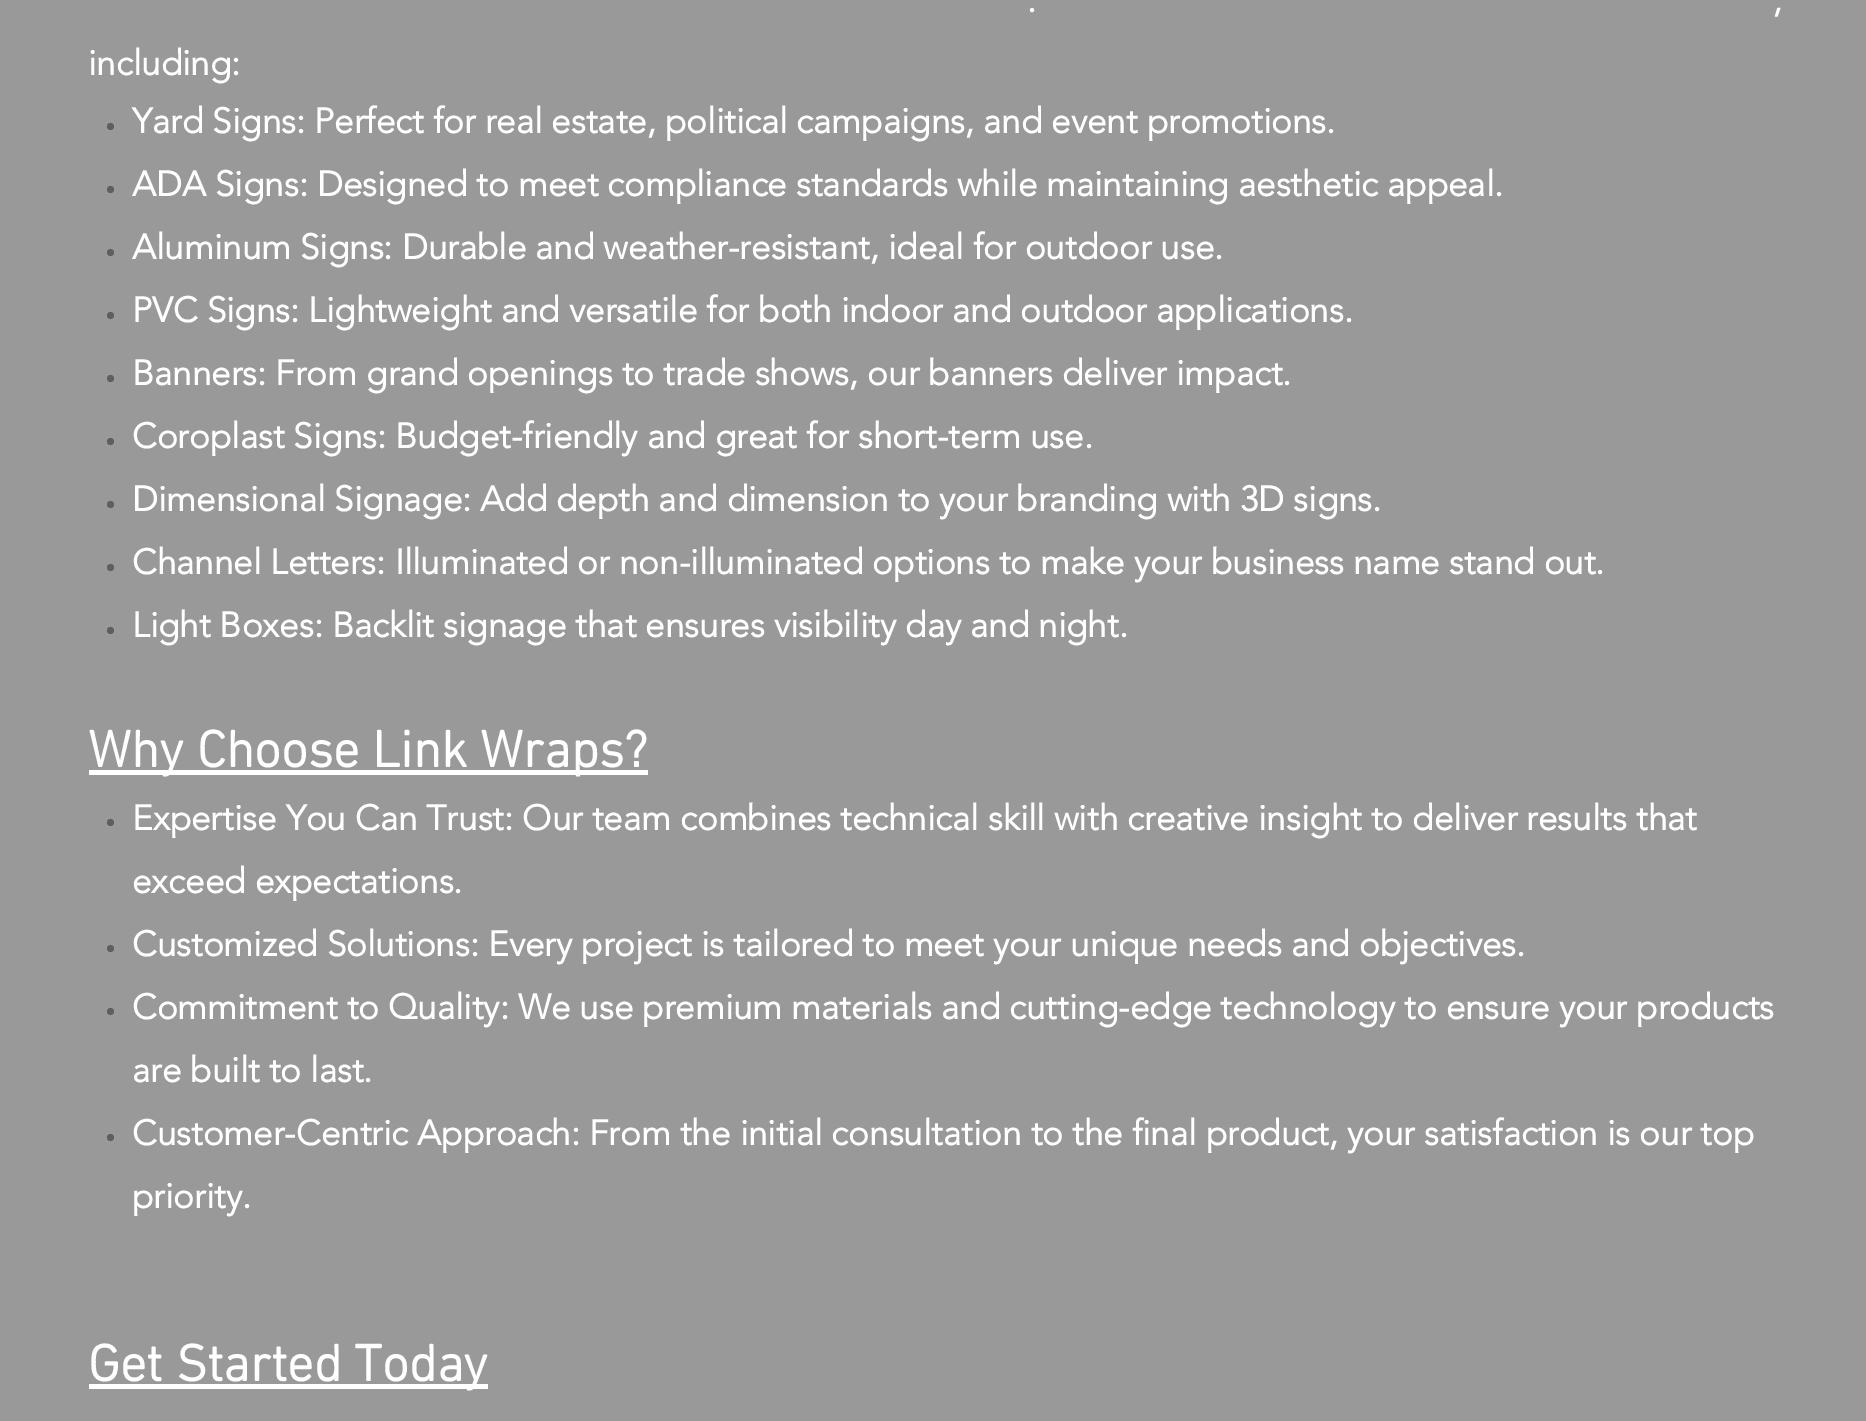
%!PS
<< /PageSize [1866 1421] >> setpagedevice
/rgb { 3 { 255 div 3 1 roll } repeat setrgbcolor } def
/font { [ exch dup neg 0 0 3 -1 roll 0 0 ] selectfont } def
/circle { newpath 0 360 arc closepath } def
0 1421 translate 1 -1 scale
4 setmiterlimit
153 153 153 rgb
0 0 1866 1421 rectfill
96 94 94 rgb
110.5 126.5 3.5 circle fill
110.5 189.5 3.5 circle fill
110.5 252.5 3.5 circle fill
110.5 315.5 3.5 circle fill
110.5 378.5 3.5 circle fill
110.5 441.5 3.5 circle fill
110.5 504.5 3.5 circle fill
110.5 567.5 3.5 circle fill
110.5 630.5 3.5 circle fill
255 255 255 rgb
89 770 559 5 rectfill
96 94 94 rgb
110.5 822.5 3.5 circle fill
110.5 948.5 3.5 circle fill
110.5 1011.5 3.5 circle fill
110.5 1137.5 3.5 circle fill
255 255 255 rgb
89 1384 399 5 rectfill
/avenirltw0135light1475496-Bold 35 font
[
  [(.) 1027 12]
  [(,) 1773 12]
  [(including:) 88 75]
  [(Yard Signs: Perfect for real estate, political campaigns, and event promotions.) 132 133]
  [(ADA Signs: Designed to meet compliance standards while maintaining aesthetic appeal.) 132 196]
  [(Aluminum Signs: Durable and weather-resistant, ideal for outdoor use.) 132 259]
  [(PVC Signs: Lightweight and versatile for both indoor and outdoor applications.) 132 322]
  [(Banners: From grand openings to trade shows, our banners deliver impact.) 132 385]
  [(Coroplast Signs: Budget-friendly and great for short-term use.) 132 448]
  [(Dimensional Signage: Add depth and dimension to your branding with 3D signs.) 132 511]
  [(Channel Letters: Illuminated or non-illuminated options to make your business name stand out.) 132 574]
  [(Light Boxes: Backlit signage that ensures visibility day and night.) 132 637]
] { aload pop moveto show } forall
/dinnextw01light-Bold 52.5 font
88 767 moveto (Why Choose Link Wraps?) show
/avenirltw0135light1475496-Bold 35 font
[
  [(Expertise You Can Trust: Our team combines technical skill with creative insight to deliver results that) 132 830]
  [(exceed expectations.) 132 893]
  [(Customized Solutions: Every project is tailored to meet your unique needs and objectives.) 132 956]
  [(Commitment to Quality: We use premium materials and cutting-edge technology to ensure your products) 132 1019]
  [(are built to last.) 132 1082]
  [(Customer-Centric Approach: From the initial consultation to the final product, your satisfaction is our top) 132 1145]
  [(priority.) 132 1208]
] { aload pop moveto show } forall
/dinnextw01light-Bold 52.5 font
88 1381 moveto (Get Started Today) show
showpage
